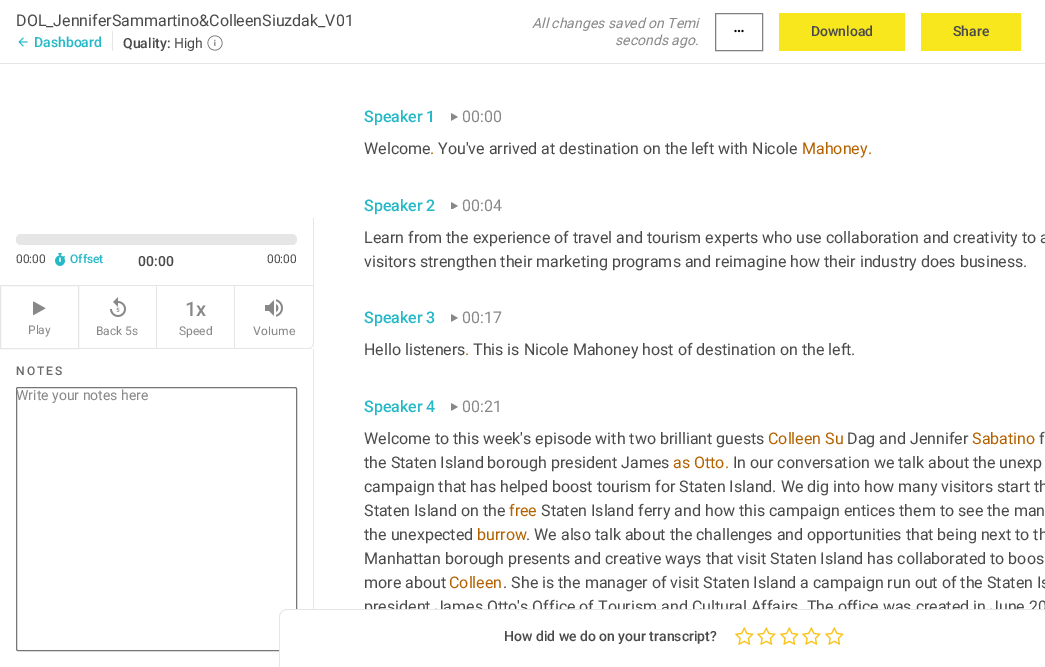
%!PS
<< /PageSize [1045 667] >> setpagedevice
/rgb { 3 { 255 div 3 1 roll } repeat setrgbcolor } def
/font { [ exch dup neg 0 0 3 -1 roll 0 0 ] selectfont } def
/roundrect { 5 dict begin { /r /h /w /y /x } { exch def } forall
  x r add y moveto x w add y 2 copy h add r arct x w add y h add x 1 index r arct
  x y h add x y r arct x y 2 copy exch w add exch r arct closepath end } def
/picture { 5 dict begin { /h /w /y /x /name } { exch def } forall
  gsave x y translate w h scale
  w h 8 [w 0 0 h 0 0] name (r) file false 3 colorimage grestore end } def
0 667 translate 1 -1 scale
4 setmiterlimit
255 255 255 rgb
0 0 1045 667 rectfill
230 230 230 rgb
0 63 1045 1 rectfill
(img/1.rgb) 18 37 10 10 picture
112 31 1 20 rectfill
(img/2.rgb) 207 35 16 16 picture
128 128 128 rgb
715.5 13.5 47 37 rectstroke
(img/3.rgb) 734 29 10 4 picture
[
  [779 13 126 38 248 231 28]
  [921 13 100 38 248 231 28]
  [313 218 1 67 230 230 230]
] { aload pop rgb rectfill } forall
16 234 281 11 5 roundrect fill
(img/4.rgb) 55 253 10 13 picture
0.5 285.5 78 63 rectstroke
(img/5.rgb) 33 301 13 15 picture
[
  [79 285 156 1 230 230 230]
  [156 285 1 64 230 230 230]
  [79 348 78 1 230 230 230]
] { aload pop rgb rectfill } forall
(img/6.rgb) 110 297 16 20 picture
234 285 1 64 rectfill
157 348 78 1 rectfill
235 285 moveto 314 285 lineto 314 343 lineto 314 346 311 349 308 349 curveto 235 349 lineto closepath 235 286 moveto 313 286 lineto 313 343 lineto 313 346 311 348 308 348 curveto 235 348 lineto closepath eofill
(img/7.rgb) 265 299 18 18 picture
313 349 1 260 rectfill
118 118 118 rgb
16.5 387.5 280 263 1.5 roundrect stroke
(img/8.rgb) 451 113 7 8 picture
(img/9.rgb) 451 202 7 7 picture
(img/8.rgb) 451 314 7 8 picture
(img/8.rgb) 451 403 7 8 picture
/Roboto-Regular 16 font
74 74 74 rgb
16 26 moveto (DOL_JenniferSammartino&ColleenSiuzdak_V01) show
/Roboto-Medium 14 font
37 185 200 rgb
34 47 moveto (Dashboard) show
74 74 74 rgb
123 48 moveto (Quality:) show
/Roboto-Regular 14 font
174 48 moveto (High) show
/Roboto-Italic 14 font
136 136 136 rgb
532 28 moveto (All changes saved on Temi) show
615 45 moveto (seconds ago.) show
/Roboto-Medium 14 font
74 74 74 rgb
811 36 moveto (Download) show
953 36 moveto (Share) show
/Roboto-Regular 12 font
16 263 moveto (00:00) show
/Roboto-Medium 12 font
37 185 200 rgb
70 263 moveto (Offset) show
/Roboto-Medium 14 font
74 74 74 rgb
138 266 moveto (00:00) show
/Roboto-Regular 12 font
267 263 moveto (00:00) show
136 136 136 rgb
28 334 moveto (Play) show
96 335 moveto (Back 5s) show
/Roboto-Medium 20 font
185 316 moveto (1x) show
/Roboto-Regular 12 font
179 335 moveto (Speed) show
/Rubik-Regular 12 font
253 335 moveto (Volume) show
/Roboto-Medium 12 font
106 106 106 rgb
16 375 moveto 2 0 (NOTES) ashow
/Roboto-Regular 14 font
136 136 136 rgb
16 400 moveto (Write your notes here) show
/Roboto-Medium 16 font
37 185 200 rgb
364 122 moveto (Speaker 1) show
/Roboto-Regular 16 font
136 136 136 rgb
462 122 moveto (00:00) show
74 74 74 rgb
364 154 moveto (Welcome) show
180 97 0 rgb
430 154 moveto (.) show
74 74 74 rgb
438 154 moveto (You've arrived at destination on the left with Nicole) show
180 97 0 rgb
802 154 moveto (Mahoney.) show
/Roboto-Medium 16 font
37 185 200 rgb
364 211 moveto (Speaker 2) show
/Roboto-Regular 16 font
136 136 136 rgb
462 211 moveto (00:04) show
74 74 74 rgb
364 243 moveto (Learn from the experience of travel and tourism experts who use collaboration and creativity to a) show
364 267 moveto (visitors strengthen their marketing programs and reimagine how their industry does business.) show
/Roboto-Medium 16 font
37 185 200 rgb
364 323 moveto (Speaker 3) show
/Roboto-Regular 16 font
136 136 136 rgb
462 323 moveto (00:17) show
74 74 74 rgb
364 355 moveto (Hello listeners) show
180 97 0 rgb
465 355 moveto (.) show
74 74 74 rgb
473 355 moveto (This is Nicole Mahoney host of destination on the left.) show
/Roboto-Medium 16 font
37 185 200 rgb
364 412 moveto (Speaker 4) show
/Roboto-Regular 16 font
136 136 136 rgb
462 412 moveto (00:21) show
74 74 74 rgb
364 444 moveto (Welcome to this week's episode with two brilliant guests) show
180 97 0 rgb
768 444 moveto (Colleen Su) show
74 74 74 rgb
847 444 moveto (Dag and Jennifer) show
180 97 0 rgb
972 444 moveto (Sabatino) show
74 74 74 rgb
1039 444 moveto (f) show
364 468 moveto (the Staten Island borough president James) show
180 97 0 rgb
673 468 moveto (as Otto.) show
74 74 74 rgb
[
  [(In our conversation we talk about the unexp) 733 468]
  [(campaign that has helped boost tourism for Staten Island. We dig into how many visitors start th) 364 492]
  [(Staten Island on the) 364 516]
] { aload pop moveto show } forall
180 97 0 rgb
509 516 moveto (free) show
74 74 74 rgb
541 516 moveto (Staten Island ferry and how this campaign entices them to see the man) show
364 540 moveto (the unexpected) show
180 97 0 rgb
477 540 moveto (burrow) show
74 74 74 rgb
[
  [(. We also talk about the challenges and opportunities that being next to th) 526 540]
  [(Manhattan borough presents and creative ways that visit Staten Island has collaborated to boos) 364 564]
  [(more about) 364 588]
] { aload pop moveto show } forall
180 97 0 rgb
449 588 moveto (Colleen) show
74 74 74 rgb
503 588 moveto (. She is the manager of visit Staten Island a campaign run out of the Staten Is) show
364 612 moveto (president James Otto's Office of Tourism and Cultural Affairs. The office was created in June 20) show
255 255 255 rgb
287 610 moveto 1045 610 lineto 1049 610 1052 613 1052 617 curveto 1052 667 lineto 280 667 lineto 280 617 lineto 280 613 283 610 287 610 curveto closepath fill
230 230 230 rgb
287 609 moveto 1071 609 lineto 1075 609 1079 613 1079 617 curveto 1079 667 lineto 279 667 lineto 279 617 lineto 279 613 283 609 287 609 curveto closepath 287 610 moveto 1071 610 lineto 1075 610 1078 613 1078 617 curveto 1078 667 lineto 280 667 lineto 280 617 lineto 280 613 283 610 287 610 curveto closepath eofill
/Roboto-Medium 14 font
74 74 74 rgb
504 641 moveto (How did we do on your transcript?) show
(img/10.rgb) 735 627 19 18 picture
(img/10.rgb) 757 627 19 18 picture
(img/10.rgb) 780 627 19 18 picture
(img/10.rgb) 802 627 19 18 picture
(img/10.rgb) 825 627 19 18 picture
showpage
